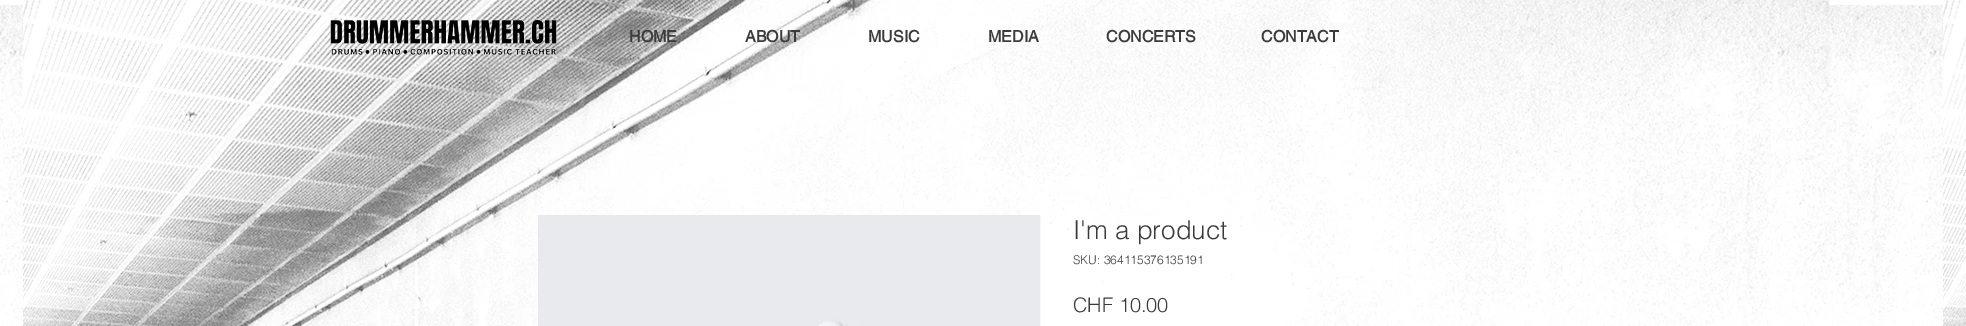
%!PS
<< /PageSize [1966 326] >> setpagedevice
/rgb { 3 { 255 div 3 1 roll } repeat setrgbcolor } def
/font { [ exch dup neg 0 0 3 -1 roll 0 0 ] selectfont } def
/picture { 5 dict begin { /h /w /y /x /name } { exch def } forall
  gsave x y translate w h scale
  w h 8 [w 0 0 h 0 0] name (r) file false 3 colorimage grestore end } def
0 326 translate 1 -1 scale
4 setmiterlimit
255 255 255 rgb
0 0 1966 326 rectfill
(img/1.rgb) 0 0 1966 326 picture
(img/2.rgb) 330 19 227 37 picture
233 233 233 rgb
538.5 215.5 501 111 rectstroke
(img/3.rgb) 539 216 500 110 picture
/helvetica-Bold 16 font
59 59 59 rgb
[
  [(HOME) 629 42]
  [(ABOUT) 745 42]
  [(MUSIC) 868 42]
  [(MEDIA) 988 42]
  [(CONCERTS) 1106 42]
  [(CONTACT) 1261 42]
] { aload pop moveto show } forall
/helvetica-Light 26 font
1073 239 moveto (I'm a product) show
/helvetica-Light 12 font
1073 264 moveto (SKU: 364115376135191) show
/helvetica-Light 20 font
1073 312 moveto (CHF 10.00) show
showpage
